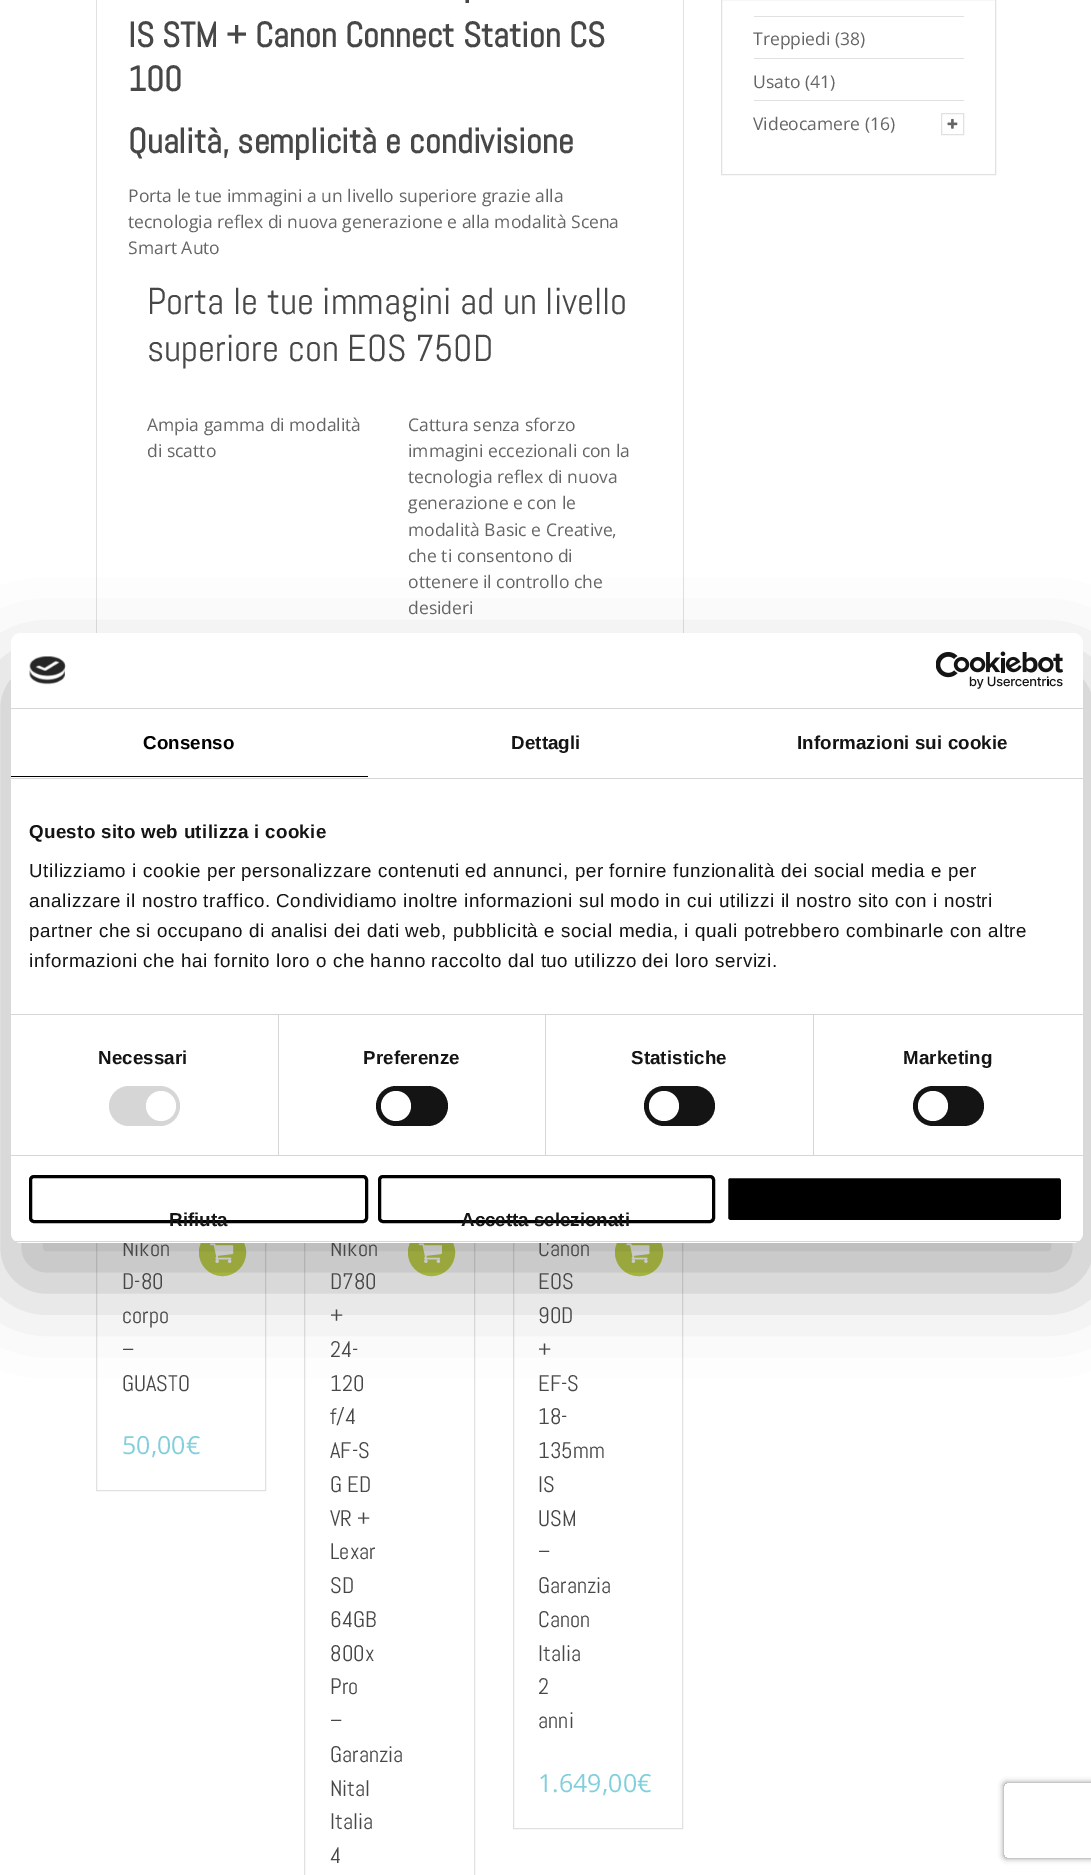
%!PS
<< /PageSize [1091 1875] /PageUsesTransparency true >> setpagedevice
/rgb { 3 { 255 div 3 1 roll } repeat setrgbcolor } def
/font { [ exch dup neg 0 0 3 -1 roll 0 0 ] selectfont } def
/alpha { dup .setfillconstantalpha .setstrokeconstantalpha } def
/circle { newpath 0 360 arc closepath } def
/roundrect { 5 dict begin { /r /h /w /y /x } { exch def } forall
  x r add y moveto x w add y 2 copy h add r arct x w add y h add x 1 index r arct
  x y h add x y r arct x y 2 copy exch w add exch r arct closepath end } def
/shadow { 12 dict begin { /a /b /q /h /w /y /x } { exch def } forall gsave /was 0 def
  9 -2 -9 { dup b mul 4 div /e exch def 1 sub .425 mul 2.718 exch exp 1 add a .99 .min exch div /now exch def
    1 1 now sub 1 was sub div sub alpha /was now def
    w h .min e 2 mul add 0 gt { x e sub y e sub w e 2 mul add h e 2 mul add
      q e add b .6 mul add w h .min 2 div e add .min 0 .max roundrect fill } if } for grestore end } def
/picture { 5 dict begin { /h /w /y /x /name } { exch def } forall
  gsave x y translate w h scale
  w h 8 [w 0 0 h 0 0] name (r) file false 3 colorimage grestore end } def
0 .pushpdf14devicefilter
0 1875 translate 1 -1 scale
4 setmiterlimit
255 255 255 rgb
0 0 1091 1875 rectfill
225 225 225 rgb
683 0 1 633 rectfill
96 0 1 633 rectfill
96.5 1041.5 169 449 rectstroke
194 212 78 rgb
222.5 1252.5 23 circle gsave fill grestore
stroke
(img/1.rgb) 210 1243 24 20 picture
225 225 225 rgb
304.5 1041.5 170 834 rectstroke
194 212 78 rgb
431.5 1252.5 23 circle gsave fill grestore
stroke
(img/2.rgb) 418 1243 24 20 picture
225 225 225 rgb
513.5 1041.5 169 787 rectstroke
194 212 78 rgb
615.5 1229.5 47 46 23 roundrect gsave fill grestore
stroke
(img/3.rgb) 626 1243 24 20 picture
225 225 225 rgb
721.5 -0.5 274 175 rectstroke
[
  [754 16 210 1 225 225 225]
  [754 58 210 1 225 225 225]
  [754 100 210 1 225 225 225]
] { aload pop rgb rectfill } forall
941.5 113.5 22 21 rectstroke
(img/4.rgb) 947 118 11 11 picture
0 0 0 rgb
11 673 1072 610 10 42.5 0.3 shadow
gsave
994 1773 moveto 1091 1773 lineto 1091 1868 lineto 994 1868 lineto closepath 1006.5 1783 moveto 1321.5 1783 lineto 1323 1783 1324 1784 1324 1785.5 curveto 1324 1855.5 lineto 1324 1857 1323 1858 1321.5 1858 curveto 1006.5 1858 lineto 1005 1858 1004 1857 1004 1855.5 curveto 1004 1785.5 lineto 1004 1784 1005 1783 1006.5 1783 curveto closepath eoclip newpath
128 128 128 rgb
1004 1783 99 75 2.5 3 1 shadow
grestore
/Abel-Bold 35 font
72 71 71 rgb
[
  [(.) 463 3]
  [(IS STM + Canon Connect Station CS) 128 47]
  [(100) 128 91]
  [(Qualità, semplicità e condivisione) 128 153]
] { aload pop moveto show } forall
/OpenSans-Regular 17.5 font
100 101 101 rgb
[
  [(Porta le tue immagini a un livello superiore grazie alla) 128 202]
  [(tecnologia reflex di nuova generazione e alla modalità Scena) 128 228]
  [(Smart Auto) 128 254]
] { aload pop moveto show } forall
/Abel-Regular 37.5 font
72 71 71 rgb
147 314 moveto (Porta le tue immagini ad un livello) show
147 361 moveto (superiore con EOS 750D) show
/OpenSans-Regular 17.5 font
100 101 101 rgb
[
  [(Ampia gamma di modalità) 147 431]
  [(di scatto) 147 457]
  [(Cattura senza sforzo) 408 431]
  [(immagini eccezionali con la) 408 457]
  [(tecnologia reflex di nuova) 408 483]
  [(generazione e con le) 408 509]
  [(modalità Basic e Creative,) 408 536]
  [(che ti consentono di) 408 562]
  [(ottenere il controllo che) 408 588]
  [(desideri) 408 614]
] { aload pop moveto show } forall
/Abel-Regular 22.5 font
72 71 71 rgb
[
  [(Nikon) 122 1256]
  [(D-80) 122 1289]
  [(corpo) 122 1323]
  [(–) 122 1357]
  [(GUASTO) 122 1391]
] { aload pop moveto show } forall
/OpenSans-Regular 25 font
129 207 220 rgb
122 1454 moveto (50,00€) show
/Abel-Regular 22.5 font
72 71 71 rgb
[
  [(Nikon) 330 1256]
  [(D780) 330 1289]
  [(+) 330 1323]
  [(24-) 330 1357]
  [(120) 330 1391]
  [(f/4) 330 1424]
  [(AF-S) 330 1458]
  [(G ED) 330 1492]
  [(VR +) 330 1526]
  [(Lexar) 330 1559]
  [(SD) 330 1593]
  [(64GB) 330 1627]
  [(800x) 330 1661]
  [(Pro) 330 1694]
  [(–) 330 1728]
  [(Garanzia) 330 1762]
  [(Nital) 330 1796]
  [(Italia) 330 1829]
  [(4) 330 1863]
  [(Canon) 538 1256]
  [(EOS) 538 1289]
  [(90D) 538 1323]
  [(+) 538 1357]
  [(EF-S) 538 1391]
  [(18-) 538 1424]
  [(135mm) 538 1458]
  [(IS) 538 1492]
  [(USM) 538 1526]
  [(–) 538 1559]
  [(Garanzia) 538 1593]
  [(Canon) 538 1627]
  [(Italia) 538 1661]
  [(2) 538 1694]
  [(anni) 538 1728]
] { aload pop moveto show } forall
/OpenSans-Regular 25 font
129 207 220 rgb
538 1792 moveto (1.649,00€) show
/OpenSans-Regular 17.5 font
100 101 101 rgb
[
  [(Treppiedi \(38\)) 753 45]
  [(Usato \(41\)) 753 88]
  [(Videocamere \(16\)) 753 130]
] { aload pop moveto show } forall
255 255 255 rgb
11 633 1072 610 10 roundrect fill
214 214 214 rgb
11 708 1072 1 rectfill
(img/5.rgb) 29 656 37 29 picture
(img/6.rgb) 936 651 127 38 picture
11 778 1072 1 rectfill
0 0 0 rgb
11 776 357 1 rectfill
/LiberationSans-Bold 18.75 font
143 749 moveto 0.1 0 (Consenso) ashow
20 20 20 rgb
511 749 moveto 0.1 0 (Dettagli) ashow
797 749 moveto 0.1 0 (Informazioni sui cookie) ashow
214 214 214 rgb
11 1014 1072 1 rectfill
20 20 20 rgb
29 838 moveto 0.3 0 (Questo sito web utilizza i cookie) ashow
/LiberationSans-Regular 18.75 font
29 877 moveto 0.62 0 (Utilizziamo i cookie per personalizzare contenuti ed annunci, per fornire funzionalità dei social media e per) ashow
29 907 moveto 0.62 0 (analizzare il nostro traffico. Condividiamo inoltre informazioni sul modo in cui utilizzi il nostro sito con i nostri) ashow
29 937 moveto 0.62 0 (partner che si occupano di analisi dei dati web, pubblicità e social media, i quali potrebbero combinarle con altre) ashow
29 967 moveto 0.62 0 (informazioni che hai fornito loro o che hanno raccolto dal tuo utilizzo dei loro servizi.) ashow
214 214 214 rgb
11 1155 1072 1 rectfill
278 1015 1 140 rectfill
/LiberationSans-Bold 18.75 font
20 20 20 rgb
98 1064 moveto 0.1 0 (Necessari) ashow
214 214 214 rgb
109 1086 71 40 20 roundrect fill
255 255 255 rgb
161 1106 15 circle fill
214 214 214 rgb
545 1015 1 140 rectfill
20 20 20 rgb
363 1064 moveto 0.1 0 (Preferenze) ashow
376 1086 72 40 20 roundrect fill
255 255 255 rgb
396 1106 15 circle fill
214 214 214 rgb
813 1015 1 140 rectfill
20 20 20 rgb
631 1064 moveto 0.1 0 (Statistiche) ashow
644 1086 71 40 20 roundrect fill
255 255 255 rgb
664 1106 15 circle fill
20 20 20 rgb
903 1064 moveto 0.1 0 (Marketing) ashow
913 1086 71 40 20 roundrect fill
255 255 255 rgb
933 1106 15 circle fill
gsave
11 633 1072 610 10 roundrect clip newpath
214 214 214 rgb
11 1241 1072 1 rectfill
grestore
0 0 0 rgb
3 setlinewidth
30.5 1176.5 336 45 3.5 roundrect stroke
20 20 20 rgb
169 1226 moveto (Rifiuta) show
0 0 0 rgb
379.5 1176.5 334 45 3.5 roundrect stroke
20 20 20 rgb
461 1226 moveto (Accetta selezionati) show
0 0 0 rgb
726.5 1176.5 336 45 3.5 roundrect gsave fill grestore
255 255 255 rgb
stroke
.poppdf14devicefilter showpage
